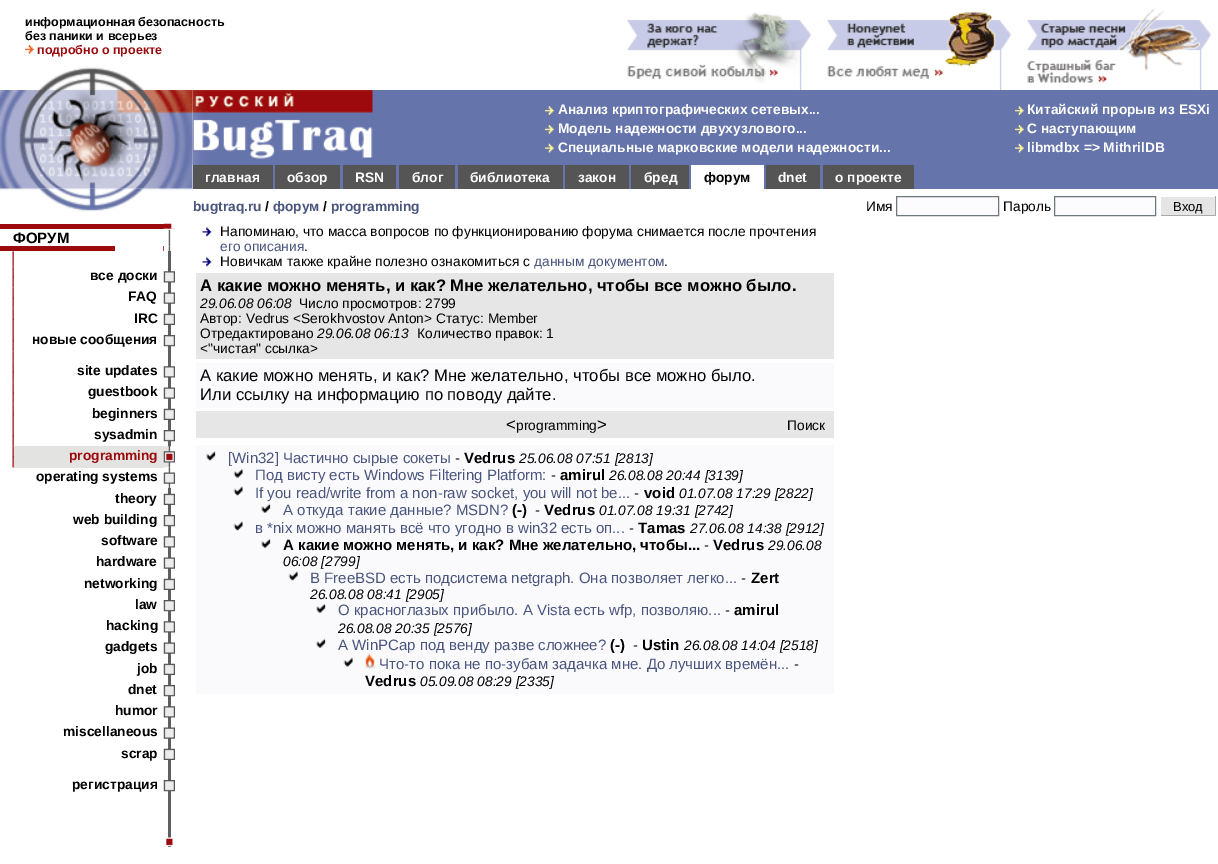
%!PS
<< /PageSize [1218 864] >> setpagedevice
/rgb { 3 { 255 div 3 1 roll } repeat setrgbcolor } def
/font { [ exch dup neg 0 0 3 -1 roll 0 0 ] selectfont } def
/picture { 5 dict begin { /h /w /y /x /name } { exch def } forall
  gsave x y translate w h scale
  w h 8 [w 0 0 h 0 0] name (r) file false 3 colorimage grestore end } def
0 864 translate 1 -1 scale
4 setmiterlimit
255 255 255 rgb
0 0 1218 864 rectfill
(img/1.rgb) 25 45 9 9 picture
(img/2.rgb) 627 12 185 78 picture
(img/3.rgb) 827 11 185 79 picture
(img/4.rgb) 1027 8 185 82 picture
(img/5.rgb) 38 67 106 23 picture
101 116 171 rgb
372 90 846 75 rectfill
(img/6.rgb) 0 90 193 99 picture
(img/7.rgb) 0 188 193 24 picture
(img/8.rgb) 192 90 181 75 picture
(img/9.rgb) 545 106 9 9 picture
(img/10.rgb) 545 125 9 9 picture
(img/11.rgb) 545 143 9 10 picture
(img/12.rgb) 1015 106 9 9 picture
(img/13.rgb) 1015 125 9 9 picture
(img/14.rgb) 1015 143 9 10 picture
[
  [273 165 945 24 101 116 171]
  [193 165 80 24 85 85 85]
  [275 165 65 24 85 85 85]
  [343 165 53 24 85 85 85]
  [399 165 56 24 85 85 85]
  [458 165 105 24 85 85 85]
  [565 165 64 24 85 85 85]
  [631 165 58 24 85 85 85]
  [691 165 73 24 255 255 255]
  [766 165 54 24 85 85 85]
  [823 165 91 24 85 85 85]
] { aload pop rgb rectfill } forall
252 252 255 rgb
896.5 196.5 moveto 998.5 196.5 lineto 998.5 215.5 lineto 896.5 215.5 lineto closepath gsave fill grestore
110 118 126 rgb
stroke
252 252 255 rgb
1054.5 196.5 moveto 1155.5 196.5 lineto 1155.5 215.5 lineto 1054.5 215.5 lineto closepath gsave fill grestore
110 118 126 rgb
stroke
[
  [1161 197 54 18 229 229 229]
  [1215 196 1 20 170 170 170]
  [1160 215 56 1 170 170 170]
  [1160 215 1 1 255 255 255]
  [0 224 164 5 156 10 14]
] { aload pop rgb rectfill } forall
(img/16.rgb) 163 228 12 19 picture
(img/15.rgb) 163 223 12 6 picture
(img/17.rgb) 163 228 12 2 picture
0 246 115 5 rectfill
(img/18.rgb) 163 246 8 6 picture
(img/20.rgb) 12 266 2 22 picture
(img/19.rgb) 12 251 2 16 picture
95 95 95 rgb
168 251 3 196 rectfill
(img/21.rgb) 13 276 1 2 picture
(img/22.rgb) 163 271 12 12 picture
(img/23.rgb) 12 287 2 22 picture
(img/24.rgb) 13 297 1 2 picture
(img/25.rgb) 163 292 12 12 picture
(img/26.rgb) 12 308 2 22 picture
(img/27.rgb) 13 318 1 2 picture
(img/28.rgb) 163 313 12 12 picture
(img/29.rgb) 12 330 2 22 picture
(img/30.rgb) 13 340 1 2 picture
(img/31.rgb) 163 335 12 12 picture
(img/20.rgb) 12 361 2 22 picture
(img/32.rgb) 12 351 2 11 picture
(img/21.rgb) 13 371 1 2 picture
(img/22.rgb) 163 366 12 12 picture
(img/23.rgb) 12 382 2 22 picture
(img/24.rgb) 13 392 1 2 picture
(img/33.rgb) 163 387 12 12 picture
(img/26.rgb) 12 403 2 22 picture
(img/27.rgb) 13 413 1 2 picture
(img/28.rgb) 163 408 12 12 picture
(img/29.rgb) 12 425 2 22 picture
(img/30.rgb) 13 435 1 2 picture
(img/31.rgb) 163 430 12 12 picture
(img/34.rgb) 12 446 2 22 picture
(img/21.rgb) 13 456 1 2 picture
227 227 225 rgb
14 446 150 22 rectfill
(img/35.rgb) 164 446 7 22 picture
(img/36.rgb) 163 451 12 12 picture
(img/37.rgb) 164 467 7 22 picture
(img/38.rgb) 163 472 12 12 picture
95 95 95 rgb
168 488 3 359 rectfill
(img/28.rgb) 163 493 12 12 picture
(img/31.rgb) 163 515 12 12 picture
(img/22.rgb) 163 536 12 12 picture
(img/33.rgb) 163 557 12 12 picture
(img/28.rgb) 163 578 12 12 picture
(img/31.rgb) 163 600 12 12 picture
(img/22.rgb) 163 621 12 12 picture
(img/33.rgb) 163 642 12 12 picture
(img/28.rgb) 163 663 12 12 picture
(img/31.rgb) 163 685 12 12 picture
(img/22.rgb) 163 706 12 12 picture
(img/33.rgb) 163 727 12 12 picture
(img/28.rgb) 163 748 12 12 picture
(img/31.rgb) 163 780 12 12 picture
(img/39.rgb) 166 837 7 10 picture
(img/40.rgb) 202 227 10 10 picture
(img/40.rgb) 202 257 10 10 picture
[
  [196 273 638 86 230 230 230]
  [196 363 638 45 250 250 252]
  [196 411 638 27 230 230 230]
  [196 445 638 249 250 250 252]
] { aload pop rgb rectfill } forall
(img/41.rgb) 206 451 10 11 picture
(img/42.rgb) 233 468 10 11 picture
(img/43.rgb) 233 486 10 11 picture
(img/44.rgb) 261 503 10 11 picture
(img/43.rgb) 233 521 10 11 picture
(img/44.rgb) 261 538 10 11 picture
(img/45.rgb) 288 571 10 11 picture
(img/44.rgb) 316 603 10 11 picture
(img/44.rgb) 316 638 10 11 picture
(img/46.rgb) 343 657 10 11 picture
/LiberationSans-Bold 12.5 font
0 0 0 rgb
25 26 moveto (информационная безопасность) show
25 40 moveto (без паники и всерьез) show
156 10 14 rgb
37 54 moveto (подробно о проекте) show
/LiberationSans-Bold 13.75 font
255 255 255 rgb
[
  [(Анализ криптографических сетевых...) 558 114]
  [(Модель надежности двухузлового...) 558 133]
  [(Специальные марковские модели надежности...) 558 152]
  [(Китайский прорыв из ESXi) 1027 114]
  [(С наступающим) 1027 133]
  [(libmdbx => MithrilDB) 1027 152]
  [(главная) 205 182]
  [(обзор) 287 182]
  [(RSN) 355 182]
  [(блог) 412 182]
  [(библиотека) 470 182]
  [(закон) 578 182]
  [(бред) 644 182]
] { aload pop moveto show } forall
0 0 0 rgb
704 182 moveto (форум) show
255 255 255 rgb
778 182 moveto (dnet) show
835 182 moveto (о проекте) show
74 85 126 rgb
193 211 moveto (bugtraq.ru) show
0 0 0 rgb
265 211 moveto (/) show
74 85 126 rgb
273 211 moveto (форум) show
0 0 0 rgb
323 211 moveto (/) show
74 85 126 rgb
331 211 moveto (programming) show
/LiberationSans-Regular 13.75 font
0 0 0 rgb
866 211 moveto (Имя) show
1003 211 moveto (Пароль) show
/LiberationSans-Regular 13 font
1173 211 moveto (Вход) show
/LiberationSans-Bold 15 font
13 243 moveto (ФОРУМ) show
/LiberationSans-Bold 13.75 font
[
  [(все доски) 90 280]
  [(FAQ) 128 301]
  [(IRC) 134 323]
  [(новые сообщения) 32 344]
  [(site updates) 77 375]
  [(guestbook) 88 396]
  [(beginners) 92 418]
  [(sysadmin) 94 439]
] { aload pop moveto show } forall
156 10 14 rgb
69 460 moveto (programming) show
0 0 0 rgb
[
  [(operating systems) 36 481]
  [(theory) 115 503]
  [(web building) 73 524]
  [(software) 101 545]
  [(hardware) 96 566]
  [(networking) 84 588]
  [(law) 135 609]
  [(hacking) 106 630]
  [(gadgets) 105 651]
  [(job) 137 673]
  [(dnet) 128 694]
  [(humor) 115 715]
  [(miscellaneous) 63 736]
  [(scrap) 121 758]
  [(регистрация) 72 789]
] { aload pop moveto show } forall
/LiberationSans-Regular 13.75 font
220 236 moveto (Напоминаю, что масса вопросов по функционированию форума снимается после прочтения) show
74 85 126 rgb
220 251 moveto (его описания) show
0 0 0 rgb
304 251 moveto (.) show
220 266 moveto (Новичкам также крайне полезно ознакомиться с) show
74 85 126 rgb
534 266 moveto (данным документом) show
0 0 0 rgb
664 266 moveto (.) show
/LiberationSans-Bold 16.65 font
200 291 moveto (А какие можно менять, и как? Мне желательно, чтобы все можно было.) show
/LiberationSans-Italic 13.75 font
200 308 moveto (29.06.08 06:08) show
/LiberationSans-Regular 13.75 font
[
  [(Число просмотров: 2799) 299 308]
  [(Автор: Vedrus <Serokhvostov Anton> Статус: Member) 200 323]
  [(Отредактировано) 200 338]
] { aload pop moveto show } forall
/LiberationSans-Italic 13.75 font
317 338 moveto (29.06.08 06:13) show
/LiberationSans-Regular 13.75 font
417 338 moveto (Количество правок: 1) show
200 353 moveto (<"чистая" ссылка>) show
/LiberationSans-Regular 16.65 font
[
  [(А какие можно менять, и как? Мне желательно, чтобы все можно было.) 200 381]
  [(Или ссылку на информацию по поводу дайте.) 200 400]
  [(<) 506 430]
] { aload pop moveto show } forall
/LiberationSans-Regular 13.75 font
516 430 moveto (programming) show
/LiberationSans-Regular 16.65 font
597 430 moveto (>) show
/LiberationSans-Regular 13.75 font
787 430 moveto (Поиск) show
/LiberationSans-Regular 15 font
74 85 126 rgb
228 463 moveto ([Win32] Частично сырые сокеты) show
0 0 0 rgb
455 463 moveto (-) show
/LiberationSans-Bold 15 font
464 463 moveto (Vedrus) show
/LiberationSans-Italic 13.75 font
519 463 moveto (25.06.08 07:51 [2813]) show
/LiberationSans-Regular 15 font
74 85 126 rgb
255 480 moveto (Под висту есть Windows Filtering Platform:) show
0 0 0 rgb
551 480 moveto (-) show
/LiberationSans-Bold 15 font
560 480 moveto (amirul) show
/LiberationSans-Italic 13.75 font
609 480 moveto (26.08.08 20:44 [3139]) show
/LiberationSans-Regular 15 font
74 85 126 rgb
255 498 moveto (If you read/write from a non-raw socket, you will not be...) show
0 0 0 rgb
634 498 moveto (-) show
/LiberationSans-Bold 15 font
644 498 moveto (void) show
/LiberationSans-Italic 13.75 font
679 498 moveto (01.07.08 17:29 [2822]) show
/LiberationSans-Regular 15 font
74 85 126 rgb
283 515 moveto (А откуда такие данные? MSDN?) show
/LiberationSans-Bold 15 font
0 0 0 rgb
512 515 moveto (\(-\)) show
/LiberationSans-Regular 15 font
535 515 moveto (-) show
/LiberationSans-Bold 15 font
544 515 moveto (Vedrus) show
/LiberationSans-Italic 13.75 font
599 515 moveto (01.07.08 19:31 [2742]) show
/LiberationSans-Regular 15 font
74 85 126 rgb
255 533 moveto (в *nix можно манять всё что угодно в win32 есть оп...) show
0 0 0 rgb
629 533 moveto (-) show
/LiberationSans-Bold 15 font
638 533 moveto (Tamas) show
/LiberationSans-Italic 13.75 font
690 533 moveto (27.06.08 14:38 [2912]) show
/LiberationSans-Bold 15 font
283 550 moveto (А какие можно менять, и как? Мне желательно, чтобы...) show
/LiberationSans-Regular 15 font
704 550 moveto (-) show
/LiberationSans-Bold 15 font
713 550 moveto (Vedrus) show
/LiberationSans-Italic 13.75 font
768 550 moveto (29.06.08) show
283 566 moveto (06:08 [2799]) show
/LiberationSans-Regular 15 font
74 85 126 rgb
310 583 moveto (В FreeBSD есть подсистема netgraph. Она позволяет легко...) show
0 0 0 rgb
741 583 moveto (-) show
/LiberationSans-Bold 15 font
751 583 moveto (Zert) show
/LiberationSans-Italic 13.75 font
310 599 moveto (26.08.08 08:41 [2905]) show
/LiberationSans-Regular 15 font
74 85 126 rgb
338 615 moveto (О красноглазых прибыло. А Vista есть wfp, позволяю...) show
0 0 0 rgb
725 615 moveto (-) show
/LiberationSans-Bold 15 font
734 615 moveto (amirul) show
/LiberationSans-Italic 13.75 font
338 633 moveto (26.08.08 20:35 [2576]) show
/LiberationSans-Regular 15 font
74 85 126 rgb
338 650 moveto (А WinPCap под венду разве сложнее?) show
/LiberationSans-Bold 15 font
0 0 0 rgb
610 650 moveto (\(-\)) show
/LiberationSans-Regular 15 font
633 650 moveto (-) show
/LiberationSans-Bold 15 font
642 650 moveto (Ustin) show
/LiberationSans-Italic 13.75 font
684 650 moveto (26.08.08 14:04 [2518]) show
(img/47.rgb) 365 653 10 16 picture
/LiberationSans-Regular 15 font
74 85 126 rgb
379 669 moveto (Что-то пока не по-зубам задачка мне. До лучших времён...) show
0 0 0 rgb
794 669 moveto (-) show
/LiberationSans-Bold 15 font
365 686 moveto (Vedrus) show
/LiberationSans-Italic 13.75 font
420 686 moveto (05.09.08 08:29 [2335]) show
showpage
